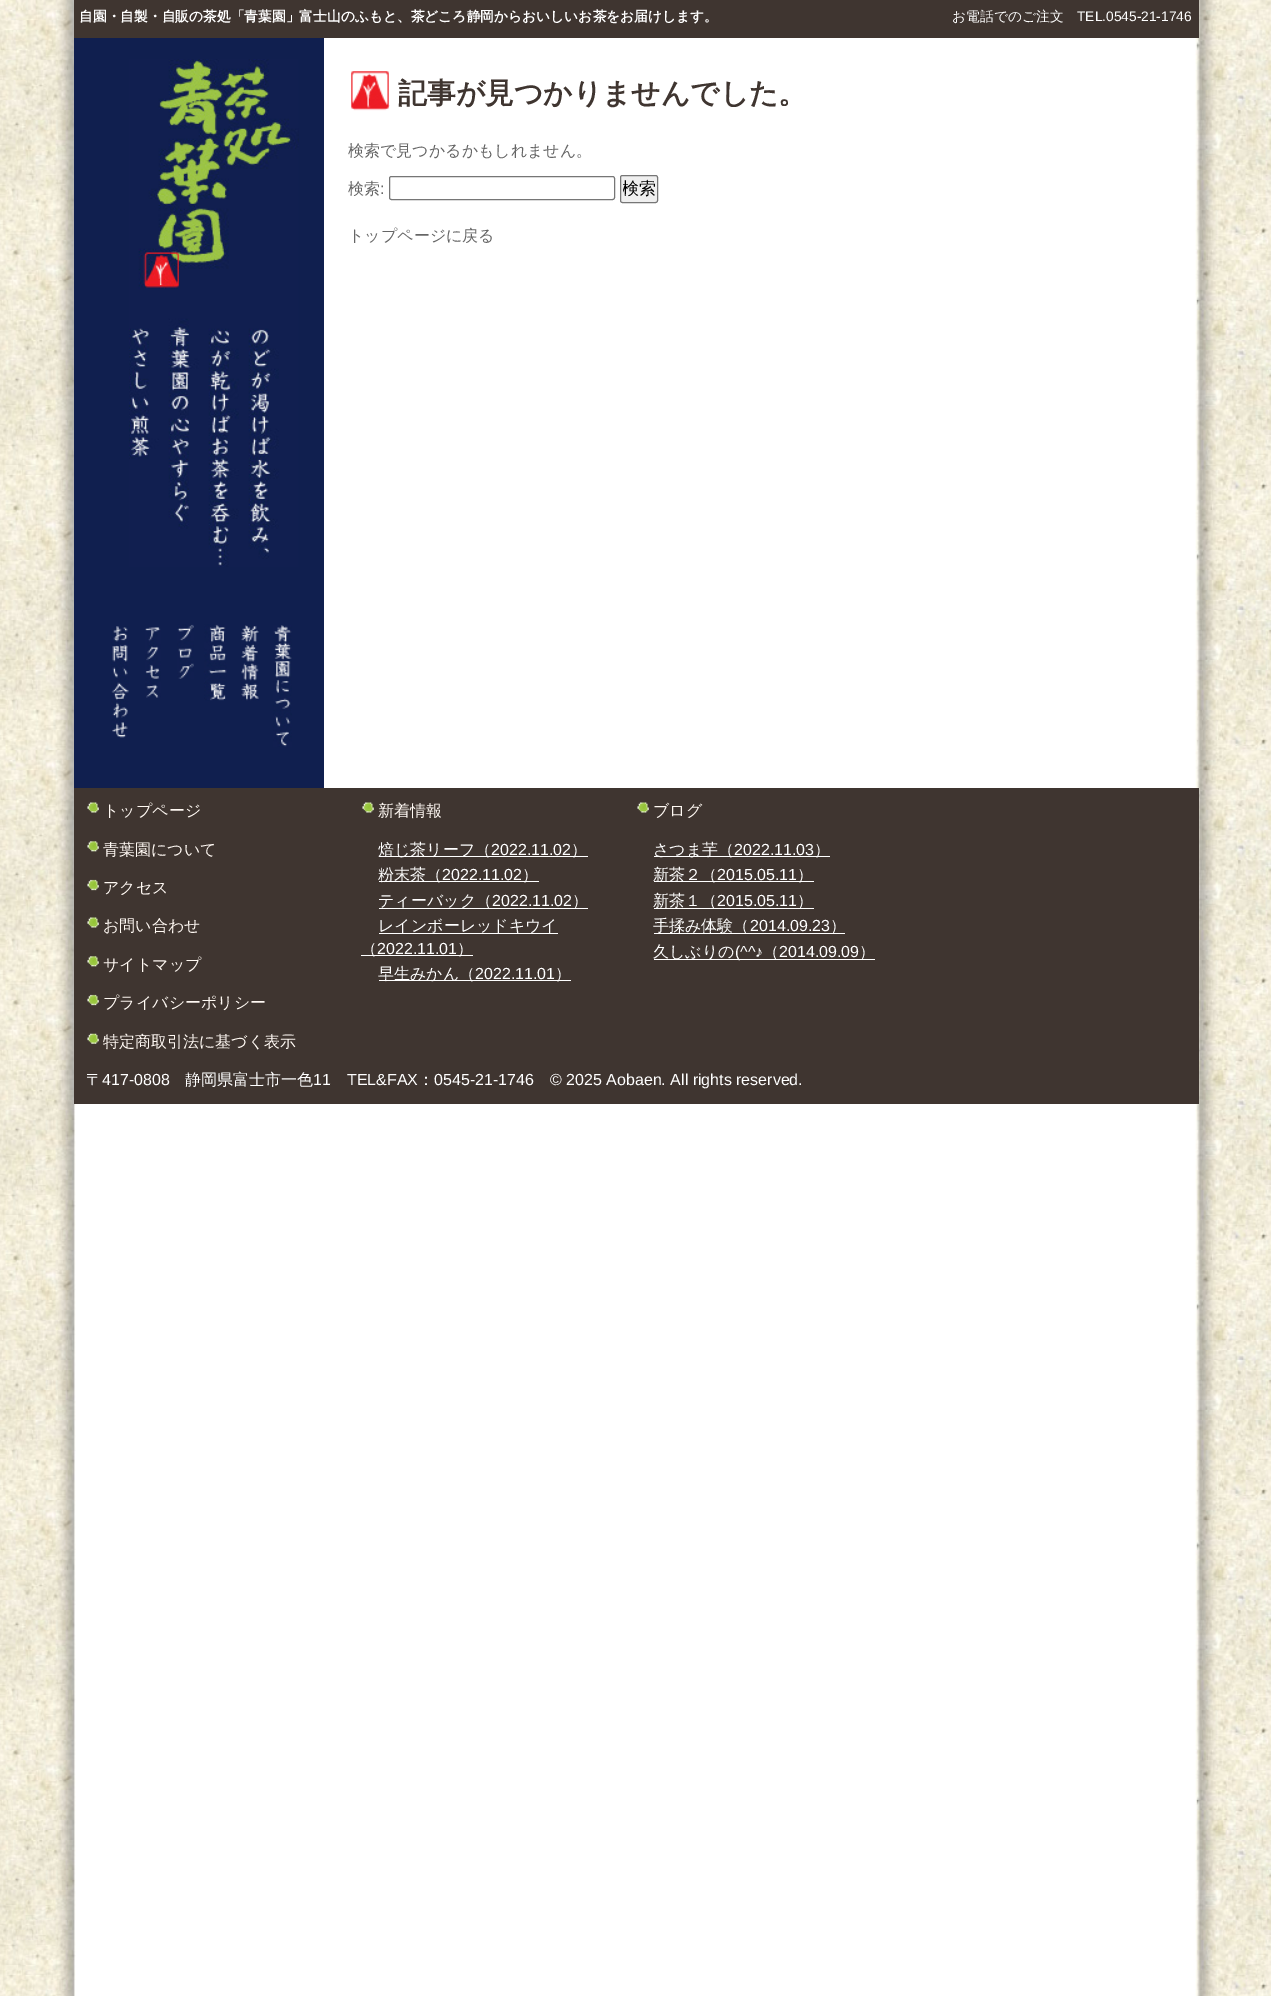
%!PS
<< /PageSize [1271 1996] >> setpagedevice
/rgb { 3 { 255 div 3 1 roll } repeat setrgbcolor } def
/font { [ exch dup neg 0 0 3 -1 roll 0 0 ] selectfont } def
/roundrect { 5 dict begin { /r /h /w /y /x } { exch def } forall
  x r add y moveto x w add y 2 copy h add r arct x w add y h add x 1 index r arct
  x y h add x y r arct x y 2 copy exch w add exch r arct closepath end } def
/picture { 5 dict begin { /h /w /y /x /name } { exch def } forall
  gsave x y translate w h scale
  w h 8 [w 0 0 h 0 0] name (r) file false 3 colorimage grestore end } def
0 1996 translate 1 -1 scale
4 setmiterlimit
255 255 255 rgb
0 0 1271 1996 rectfill
(img/1.rgb) 0 0 1271 1996 picture
63 53 48 rgb
74 0 1125 38 rectfill
16 31 79 rgb
74 38 250 750 rectfill
(img/2.rgb) 129 59 170 508 picture
(img/3.rgb) 111 626 18 112 picture
(img/4.rgb) 145 627 16 71 picture
(img/5.rgb) 177 624 17 55 picture
(img/6.rgb) 204 624 23 77 picture
(img/7.rgb) 241 625 18 76 picture
(img/8.rgb) 273 625 19 122 picture
(img/9.rgb) 351 71 39 40 picture
118 118 118 rgb
389.5 176.5 225 23 2 roundrect stroke
239 239 239 rgb
620.5 175.5 37 27 2 roundrect gsave fill grestore
118 118 118 rgb
stroke
63 53 48 rgb
74 788 1125 316 rectfill
(img/10.rgb) 87 802 12 11 picture
(img/11.rgb) 87 841 12 11 picture
(img/12.rgb) 87 879 12 12 picture
(img/10.rgb) 87 917 12 11 picture
(img/11.rgb) 87 956 12 11 picture
(img/12.rgb) 87 994 12 12 picture
(img/13.rgb) 87 1033 12 11 picture
(img/10.rgb) 362 802 12 11 picture
[
  [379 856 209 1 255 255 255]
  [379 881 160 1 255 255 255]
  [379 908 209 1 255 255 255]
  [379 933 179 1 255 255 255]
  [361 955 112 1 255 255 255]
  [379 980 192 1 255 255 255]
] { aload pop rgb rectfill } forall
(img/10.rgb) 637 802 12 11 picture
[
  [654 856 176 1 255 255 255]
  [654 881 160 1 255 255 255]
  [654 908 160 1 255 255 255]
  [654 933 191 1 255 255 255]
  [654 959 221 1 255 255 255]
] { aload pop rgb rectfill } forall
/WenQuanYiZenHei-Bold 13.75 font
79 21 moveto (自園・自製・自販の茶処「青葉園」富士山のふもと、茶どころ静岡からおいしいお茶をお届けします。) show
/WenQuanYiZenHei-Medium 13.75 font
952 21 moveto (お電話でのご注文) show
/LiberationSans-Regular 13.75 font
1077 21 moveto (TEL.0545-21-1746) show
/WenQuanYiZenHei-Bold 28.75 font
63 53 48 rgb
398 103 moveto (記事が見つかりませんでした。) show
/WenQuanYiZenHei-Medium 16 font
102 102 102 rgb
348 156 moveto (検索で見つかるかもしれません。) show
348 194 moveto (検索) show
/LiberationSans-Regular 16 font
380 194 moveto (:) show
gsave
623 178 32 22 rectclip
/WenQuanYiZenHei-Medium 17 font
0 0 0 rgb
622 194 moveto (検索) show
grestore
/WenQuanYiZenHei-Medium 16 font
348 241 moveto (トップページに戻る) show
255 249 243 rgb
[
  [(トップページ) 103 816]
  [(青葉園について) 103 855]
  [(アクセス) 103 893]
  [(お問い合わせ) 103 931]
  [(サイトマップ) 103 970]
  [(プライバシーポリシー) 103 1008]
  [(特定商取引法に基づく表示) 103 1047]
  [(新着情報) 378 816]
] { aload pop moveto show } forall
255 255 255 rgb
378 855 moveto (焙じ茶リーフ（) show
/LiberationSans-Regular 16 font
491 855 moveto (2022.11.02) show
/WenQuanYiZenHei-Medium 16 font
571 855 moveto (）) show
378 880 moveto (粉末茶（) show
/LiberationSans-Regular 16 font
442 880 moveto (2022.11.02) show
/WenQuanYiZenHei-Medium 16 font
522 880 moveto (）) show
378 906 moveto (ティーバック（) show
/LiberationSans-Regular 16 font
492 906 moveto (2022.11.02) show
/WenQuanYiZenHei-Medium 16 font
[
  [(）) 572 906]
  [(レインボーレッドキウイ) 378 931]
  [(（) 361 954]
] { aload pop moveto show } forall
/LiberationSans-Regular 16 font
377 954 moveto (2022.11.01) show
/WenQuanYiZenHei-Medium 16 font
457 954 moveto (）) show
378 979 moveto (早生みかん（) show
/LiberationSans-Regular 16 font
475 979 moveto (2022.11.01) show
/WenQuanYiZenHei-Medium 16 font
555 979 moveto (）) show
255 249 243 rgb
653 816 moveto (ブログ) show
255 255 255 rgb
653 855 moveto (さつま芋（) show
/LiberationSans-Regular 16 font
734 855 moveto (2022.11.03) show
/WenQuanYiZenHei-Medium 16 font
814 855 moveto (）) show
653 880 moveto (新茶２（) show
/LiberationSans-Regular 16 font
717 880 moveto (2015.05.11) show
/WenQuanYiZenHei-Medium 16 font
797 880 moveto (）) show
653 906 moveto (新茶１（) show
/LiberationSans-Regular 16 font
717 906 moveto (2015.05.11) show
/WenQuanYiZenHei-Medium 16 font
797 906 moveto (）) show
653 931 moveto (手揉み体験（) show
/LiberationSans-Regular 16 font
750 931 moveto (2014.09.23) show
/WenQuanYiZenHei-Medium 16 font
830 931 moveto (）) show
653 957 moveto (久しぶりの) show
/LiberationSans-Regular 16 font
735 957 moveto (\(^^♪) show
/WenQuanYiZenHei-Medium 16 font
763 957 moveto (（) show
/LiberationSans-Regular 16 font
779 957 moveto (2014.09.09) show
/WenQuanYiZenHei-Medium 16 font
859 957 moveto (）) show
86 1085 moveto (〒) show
/LiberationSans-Regular 16 font
102 1085 moveto (417-0808) show
/WenQuanYiZenHei-Medium 16 font
185 1085 moveto (静岡県富士市一色) show
/LiberationSans-Regular 16 font
313 1085 moveto (11) show
347 1085 moveto (TEL&FAX) show
/WenQuanYiZenHei-Medium 16 font
418 1085 moveto (：) show
/LiberationSans-Regular 16 font
434 1085 moveto (0545-21-1746) show
550 1085 moveto (© 2025 Aobaen. All rights reserved.) show
showpage
